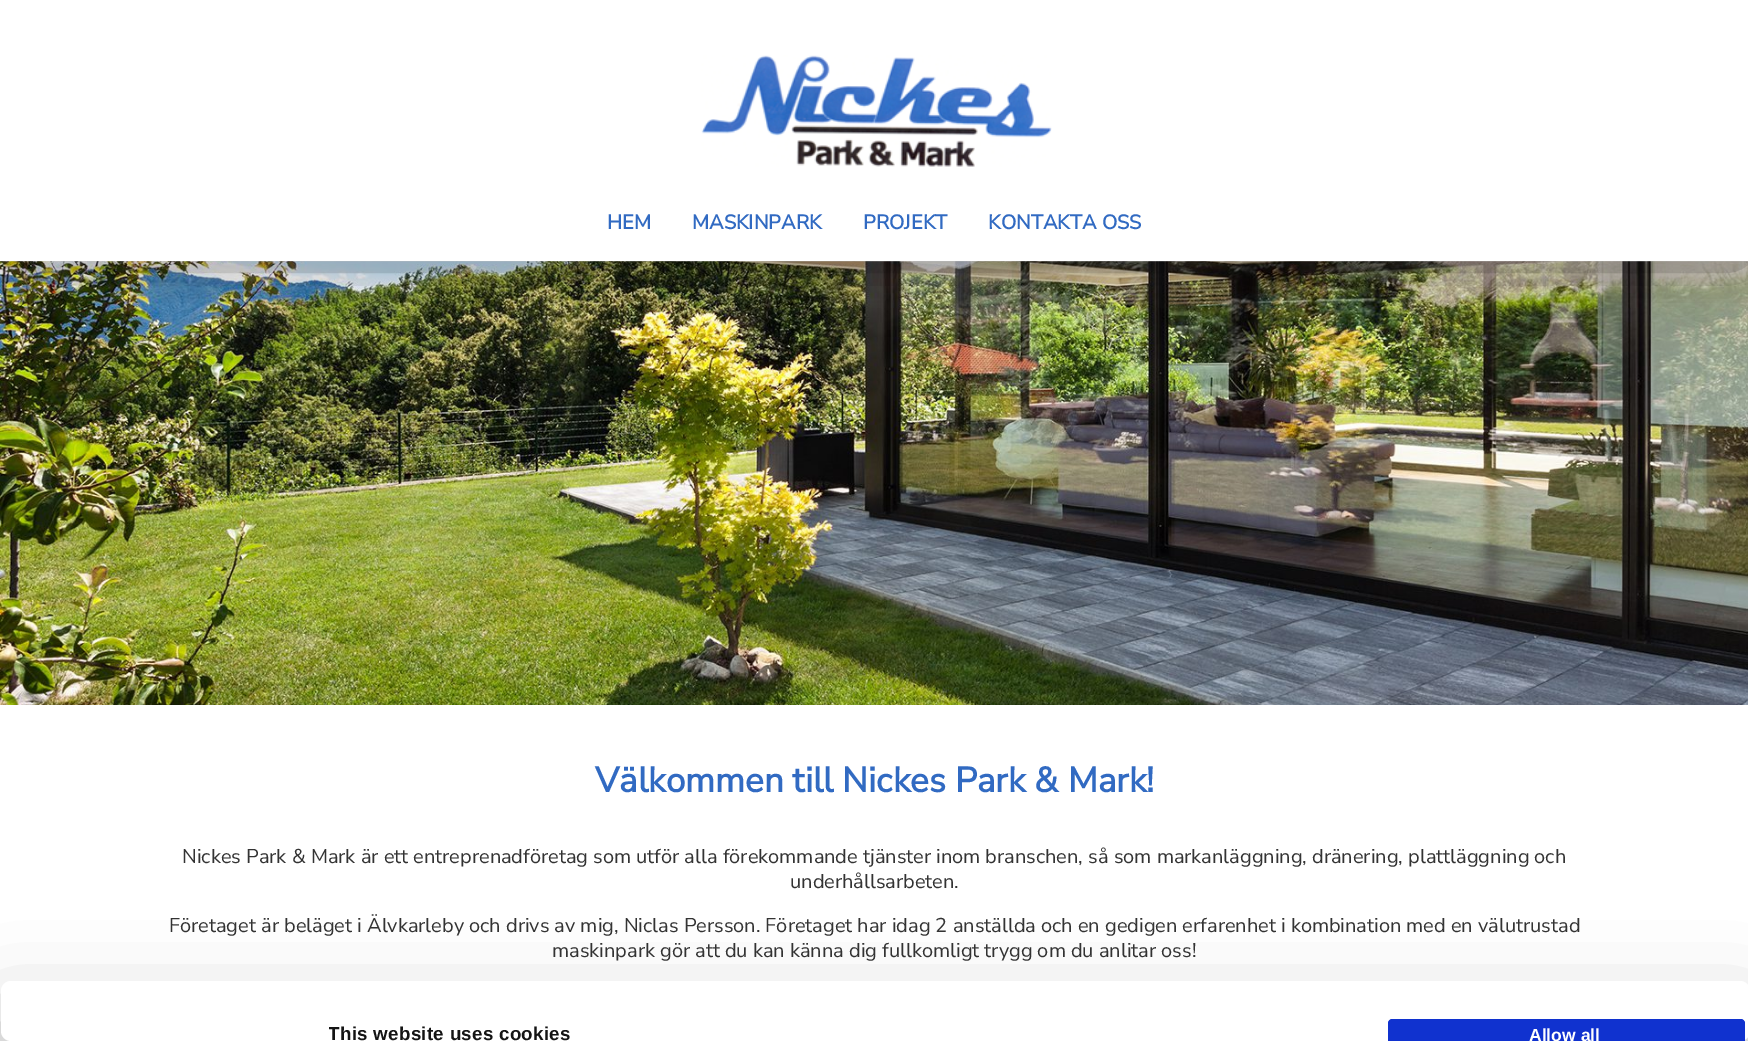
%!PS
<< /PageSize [1748 1041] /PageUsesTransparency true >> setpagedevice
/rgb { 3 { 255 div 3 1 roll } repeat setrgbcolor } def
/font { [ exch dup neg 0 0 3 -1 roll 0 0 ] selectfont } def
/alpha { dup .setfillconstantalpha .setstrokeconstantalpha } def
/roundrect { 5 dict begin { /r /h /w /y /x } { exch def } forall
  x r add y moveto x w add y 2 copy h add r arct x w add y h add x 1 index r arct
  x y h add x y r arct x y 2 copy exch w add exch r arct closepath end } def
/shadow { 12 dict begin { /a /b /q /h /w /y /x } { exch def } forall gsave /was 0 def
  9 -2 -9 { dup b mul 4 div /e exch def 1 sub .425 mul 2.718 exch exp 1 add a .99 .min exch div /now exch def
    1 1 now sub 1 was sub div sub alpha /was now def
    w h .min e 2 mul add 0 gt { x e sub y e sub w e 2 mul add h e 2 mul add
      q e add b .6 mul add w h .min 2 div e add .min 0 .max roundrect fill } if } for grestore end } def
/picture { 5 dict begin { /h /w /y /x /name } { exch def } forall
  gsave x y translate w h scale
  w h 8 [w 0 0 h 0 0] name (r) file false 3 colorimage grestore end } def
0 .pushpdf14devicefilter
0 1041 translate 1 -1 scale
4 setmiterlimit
255 255 255 rgb
0 0 1748 1041 rectfill
(img/2.rgb) 0 261 1748 444 picture
gsave
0 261 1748 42 rectclip
0 0 0 rgb
8 8 1733 246 0 25.5 0.75 shadow
grestore
(img/1.rgb) 701 55 351 112 picture
0 0 0 rgb
1 1019 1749 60 10 44 0.3 shadow
255 255 255 rgb
1 981 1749 60 10 roundrect fill
gsave
1 981 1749 60 10 roundrect clip newpath
16 50 207 rgb
1393 1019 moveto 1740 1019 lineto 1743 1019 1745 1021 1745 1024 curveto 1745 1041 lineto 1388 1041 lineto 1388 1024 lineto 1388 1021 1390 1019 1393 1019 curveto closepath fill
grestore
16 50 207 rgb
1393 1019 moveto 1390 1019 1388 1021 1388 1024 curveto 1388 1041 lineto 1391 1041 lineto 1391 1024 lineto 1391 1023 1392 1022 1393 1022 curveto 1740 1022 lineto 1741 1022 1742 1023 1742 1024 curveto 1742 1041 lineto 1745 1040 lineto 1745 1024 lineto 1745 1021 1743 1019 1740 1019 curveto closepath fill
/NunitoSans-Bold 20 font
49 106 194 rgb
[
  [(HEM) 607 229]
  [(MASKINPARK) 692 229]
  [(PROJEKT) 863 229]
  [(KONTAKTA OSS) 988 229]
] { aload pop moveto show } forall
/NunitoSans-Bold 35 font
595 792 moveto (Välkommen till Nickes Park & Mark!) show
/NunitoSans-ExtraLight 20 font
51 51 51 rgb
[
  [(Nickes Park & Mark är ett entreprenadföretag som utför alla förekommande tjänster inom branschen, så som markanläggning, dränering, plattläggning och) 182 863]
  [(underhållsarbeten.) 790 888]
  [(Företaget är beläget i Älvkarleby och drivs av mig, Niclas Persson. Företaget har idag 2 anställda och en gedigen erfarenhet i kombination med en välutrustad) 169 932]
  [(maskinpark gör att du kan känna dig fullkomligt trygg om du anlitar oss!) 552 957]
] { aload pop moveto show } forall
gsave
329 1019 1026 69 rectclip
/LiberationSans-Bold 18.75 font
20 20 20 rgb
328 1040 moveto 0.3 0 (This website uses cookies) ashow
grestore
/LiberationSans-Bold 17.5 font
255 255 255 rgb
1529 1041 moveto (Allow all) show
.poppdf14devicefilter showpage
